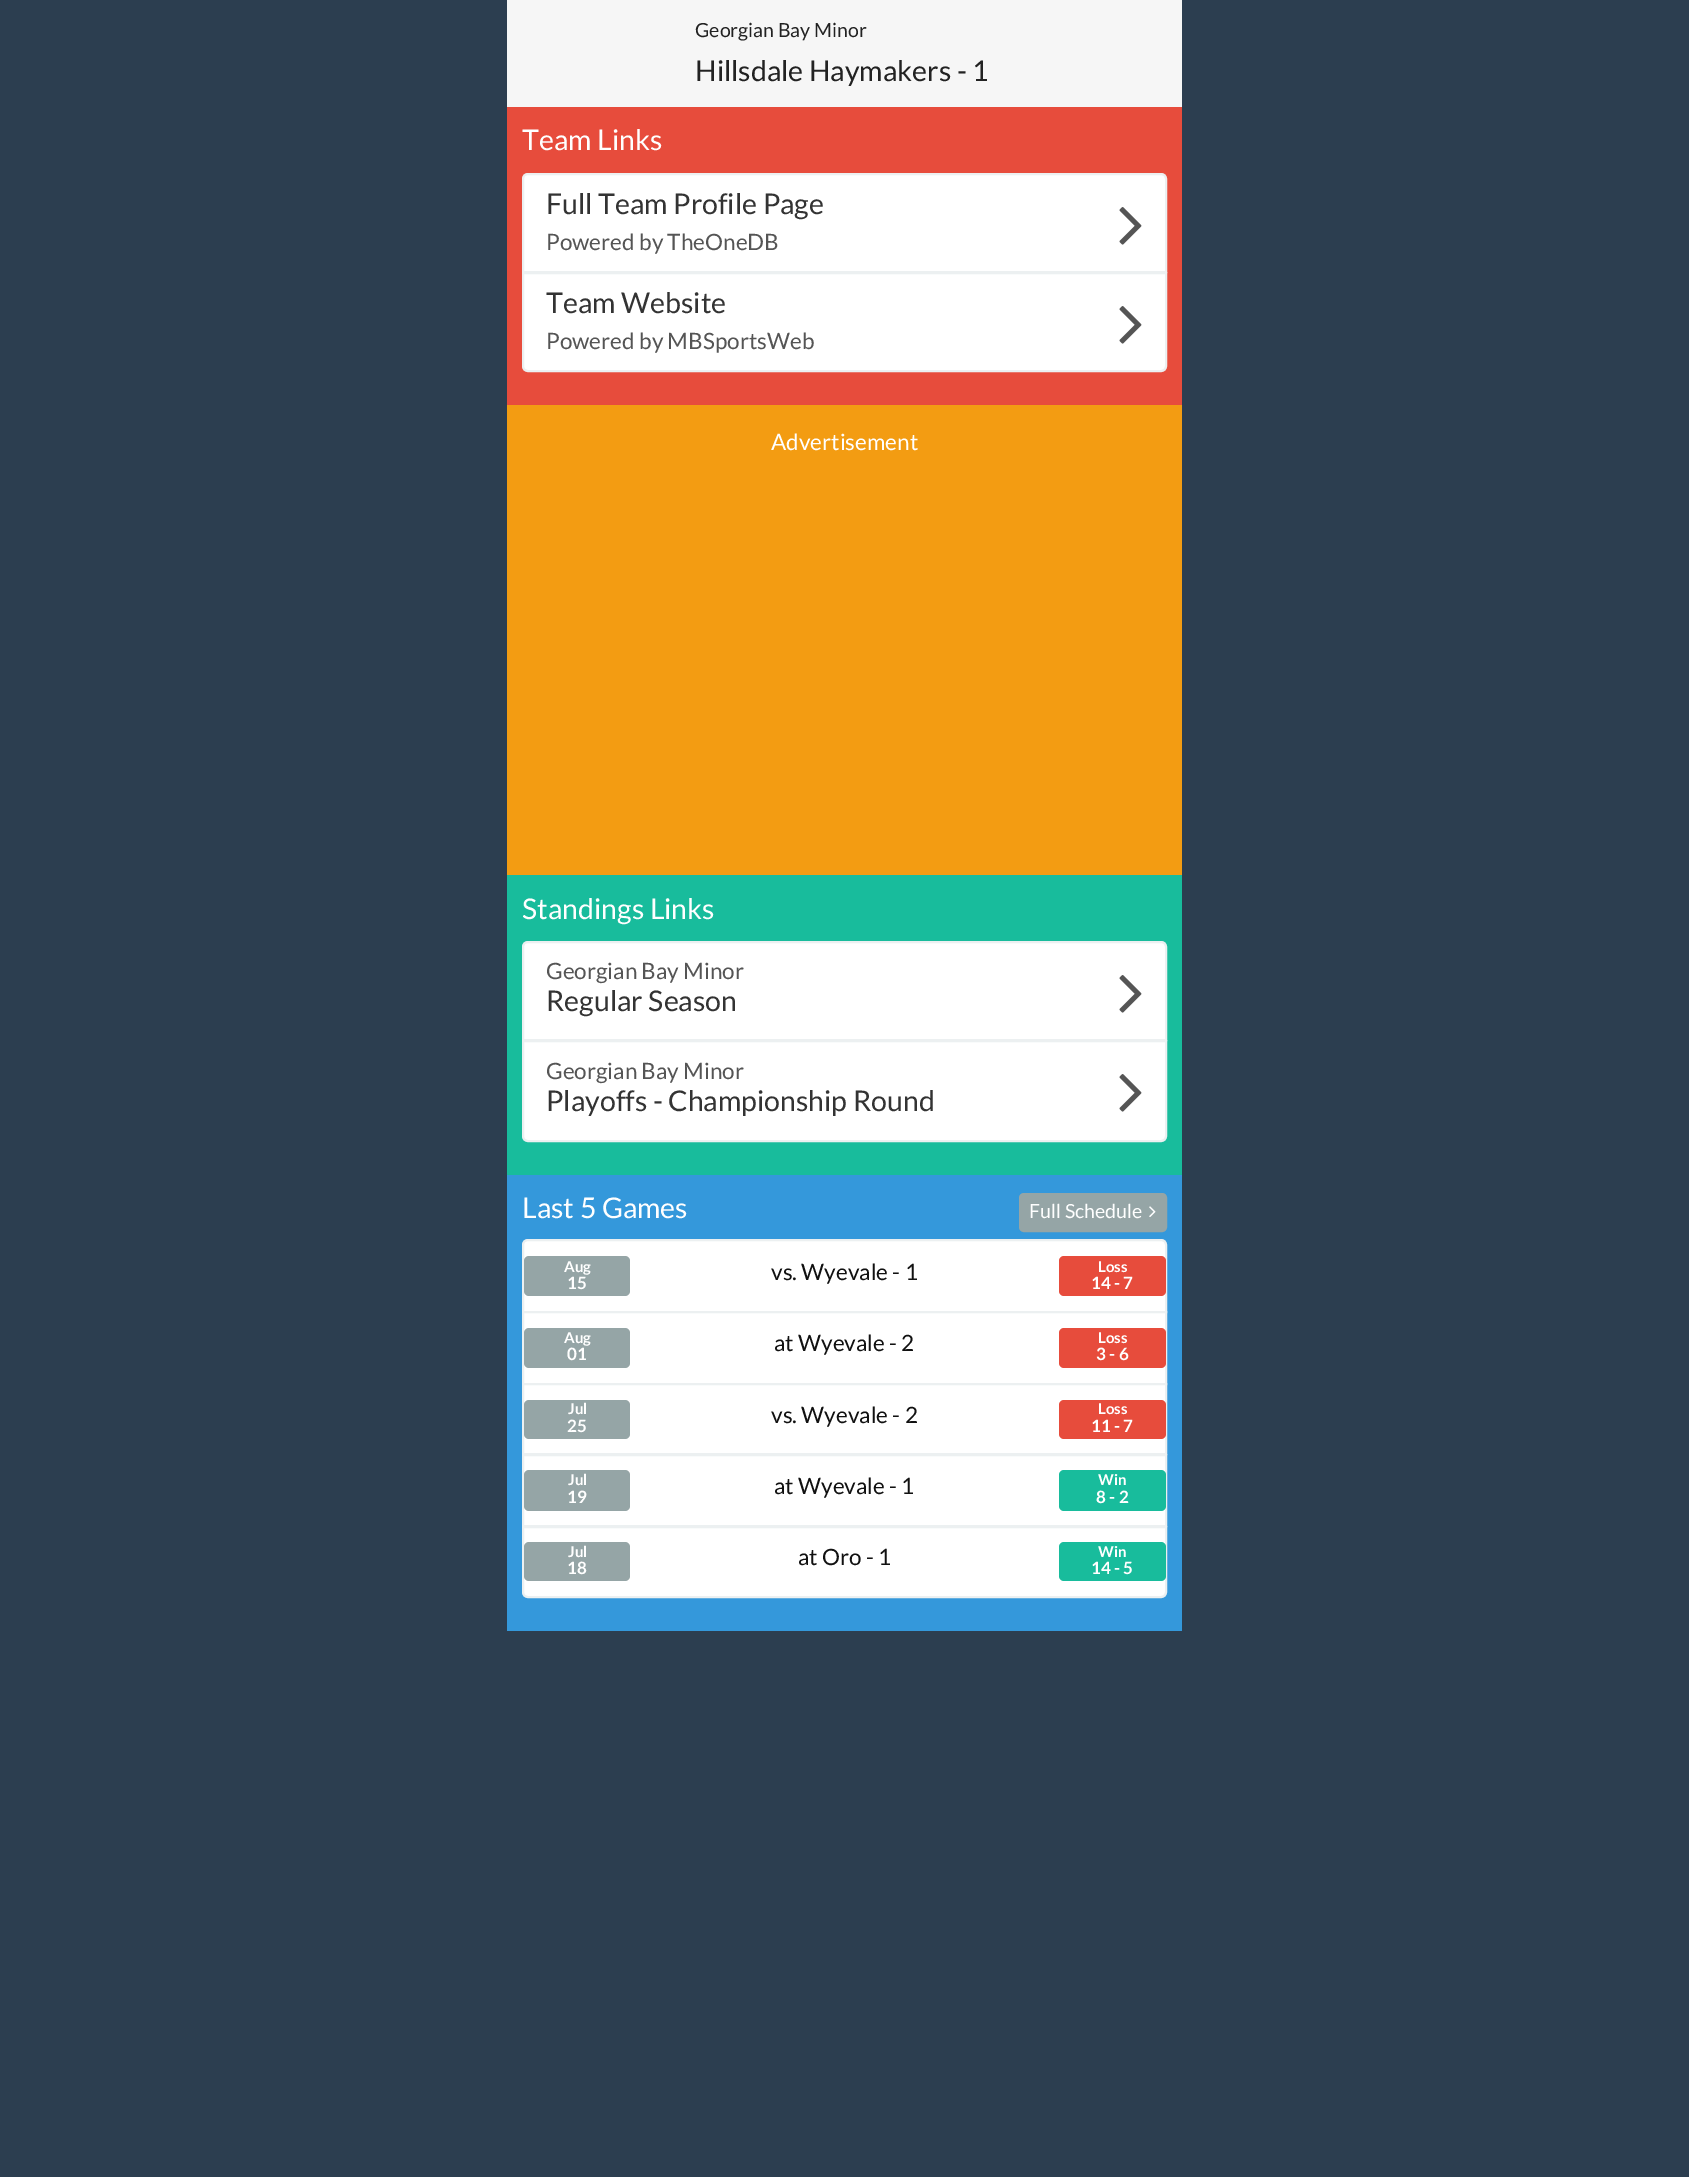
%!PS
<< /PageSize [1689 2177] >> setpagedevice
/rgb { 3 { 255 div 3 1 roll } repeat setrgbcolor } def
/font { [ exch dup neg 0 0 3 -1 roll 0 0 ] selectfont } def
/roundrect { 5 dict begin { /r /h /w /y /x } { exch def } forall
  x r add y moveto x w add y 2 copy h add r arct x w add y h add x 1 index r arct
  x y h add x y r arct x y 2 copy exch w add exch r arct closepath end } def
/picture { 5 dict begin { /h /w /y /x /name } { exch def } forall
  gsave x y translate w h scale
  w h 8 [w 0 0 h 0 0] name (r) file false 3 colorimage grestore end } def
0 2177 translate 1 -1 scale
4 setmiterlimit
44 62 80 rgb
0 0 1689 2177 rectfill
246 246 246 rgb
507 0 675 107 rectfill
231 76 60 rgb
507 107 675 298 rectfill
255 255 255 rgb
528 174 moveto 1161 174 lineto 1164 174 1166 176 1166 179 curveto 1166 272 lineto 523 272 lineto 523 179 lineto 523 176 525 174 528 174 curveto closepath gsave fill grestore
236 240 241 rgb
2 setlinewidth
stroke
(img/1.rgb) 1119 207 23 38 picture
255 255 255 rgb
523 273 moveto 1166 273 lineto 1166 366 lineto 1166 369 1164 371 1161 371 curveto 528 371 lineto 525 371 523 369 523 366 curveto closepath gsave fill grestore
236 240 241 rgb
stroke
(img/1.rgb) 1119 306 23 38 picture
243 156 18 rgb
507 405 675 470 rectfill
24 188 156 rgb
507 875 675 300 rectfill
255 255 255 rgb
528 942 moveto 1161 942 lineto 1164 942 1166 944 1166 947 curveto 1166 1040 lineto 523 1040 lineto 523 947 lineto 523 944 525 942 528 942 curveto closepath gsave fill grestore
236 240 241 rgb
stroke
(img/1.rgb) 1119 975 23 38 picture
255 255 255 rgb
523 1041 moveto 1166 1041 lineto 1166 1136 lineto 1166 1139 1164 1141 1161 1141 curveto 528 1141 lineto 525 1141 523 1139 523 1136 curveto closepath gsave fill grestore
236 240 241 rgb
stroke
(img/1.rgb) 1119 1074 23 38 picture
52 152 219 rgb
507 1175 675 456 rectfill
149 165 166 rgb
1020.5 1194.5 145 36 3.5 roundrect gsave fill grestore
3 setlinewidth
stroke
(img/2.rgb) 1149 1206 7 11 picture
255 255 255 rgb
528 1240 moveto 1161 1240 lineto 1164 1240 1166 1242 1166 1245 curveto 1166 1312 lineto 523 1312 lineto 523 1245 lineto 523 1242 525 1240 528 1240 curveto closepath gsave fill grestore
236 240 241 rgb
2 setlinewidth
stroke
149 165 166 rgb
524 1256 106 40 5 roundrect fill
231 76 60 rgb
1059 1256 107 40 5 roundrect fill
255 255 255 rgb
523 1312 moveto 1166 1312 lineto 1166 1384 lineto 523 1384 lineto closepath gsave fill grestore
236 240 241 rgb
stroke
149 165 166 rgb
524 1328 106 40 5 roundrect fill
231 76 60 rgb
1059 1328 107 40 5 roundrect fill
255 255 255 rgb
523 1384 moveto 1166 1384 lineto 1166 1454 lineto 523 1454 lineto closepath gsave fill grestore
236 240 241 rgb
stroke
149 165 166 rgb
524 1400 106 39 5 roundrect fill
231 76 60 rgb
1059 1400 107 39 5 roundrect fill
255 255 255 rgb
523 1455 moveto 1166 1455 lineto 1166 1526 lineto 523 1526 lineto closepath gsave fill grestore
236 240 241 rgb
stroke
149 165 166 rgb
524 1470 106 41 5 roundrect fill
24 188 156 rgb
1059 1470 107 41 5 roundrect fill
255 255 255 rgb
523 1527 moveto 1166 1527 lineto 1166 1592 lineto 1166 1595 1164 1597 1161 1597 curveto 528 1597 lineto 525 1597 523 1595 523 1592 curveto closepath gsave fill grestore
236 240 241 rgb
stroke
149 165 166 rgb
524 1542 106 39 5 roundrect fill
24 188 156 rgb
1059 1542 107 39 5 roundrect fill
/Lato-Regular 19.5 font
34 34 34 rgb
695 37 moveto (Georgian Bay Minor) show
/Lato-Regular 28.5 font
695 81 moveto (Hillsdale Haymakers - 1) show
255 255 255 rgb
522 150 moveto (Team Links) show
51 51 51 rgb
546 214 moveto (Full Team Profile Page) show
/Lato-Regular 22.5 font
85 85 85 rgb
546 250 moveto (Powered by TheOneDB) show
/Lato-Regular 28.5 font
51 51 51 rgb
546 313 moveto (Team Website) show
/Lato-Regular 22.5 font
85 85 85 rgb
546 349 moveto (Powered by MBSportsWeb) show
255 255 255 rgb
771 450 moveto (Advertisement) show
/Lato-Regular 28.5 font
522 919 moveto (Standings Links) show
/Lato-Regular 22.5 font
85 85 85 rgb
546 979 moveto (Georgian Bay Minor) show
/Lato-Regular 28.5 font
51 51 51 rgb
546 1011 moveto (Regular Season) show
/Lato-Regular 22.5 font
85 85 85 rgb
546 1079 moveto (Georgian Bay Minor) show
/Lato-Regular 28.5 font
51 51 51 rgb
546 1111 moveto (Playoffs - Championship Round) show
255 255 255 rgb
522 1218 moveto (Last 5 Games) show
/Lato-Regular 19.5 font
1029 1218 moveto (Full Schedule) show
/Lato-Bold 15 font
564 1272 moveto (Aug) show
/Lato-Bold 17 font
567 1289 moveto (15) show
/Lato-Regular 22.5 font
17 17 17 rgb
771 1280 moveto (vs. Wyevale - 1) show
/Lato-Bold 15 font
255 255 255 rgb
1098 1272 moveto (Loss) show
/Lato-Bold 17 font
1091 1289 moveto (14 - 7) show
/Lato-Bold 15 font
564 1343 moveto (Aug) show
/Lato-Bold 17 font
567 1360 moveto (01) show
/Lato-Regular 22.5 font
17 17 17 rgb
774 1351 moveto (at Wyevale - 2) show
/Lato-Bold 15 font
255 255 255 rgb
1098 1343 moveto (Loss) show
/Lato-Bold 17 font
1096 1360 moveto (3 - 6) show
/Lato-Bold 15 font
568 1414 moveto (Jul) show
/Lato-Bold 17 font
567 1432 moveto (25) show
/Lato-Regular 22.5 font
17 17 17 rgb
771 1423 moveto (vs. Wyevale - 2) show
/Lato-Bold 15 font
255 255 255 rgb
1098 1414 moveto (Loss) show
/Lato-Bold 17 font
1091 1432 moveto (11 - 7) show
/Lato-Bold 15 font
568 1485 moveto (Jul) show
/Lato-Bold 17 font
567 1503 moveto (19) show
/Lato-Regular 22.5 font
17 17 17 rgb
774 1494 moveto (at Wyevale - 1) show
/Lato-Bold 15 font
255 255 255 rgb
1098 1485 moveto (Win) show
/Lato-Bold 17 font
1096 1503 moveto (8 - 2) show
/Lato-Bold 15 font
568 1557 moveto (Jul) show
/Lato-Bold 17 font
567 1574 moveto (18) show
/Lato-Regular 22.5 font
17 17 17 rgb
798 1565 moveto (at Oro - 1) show
/Lato-Bold 15 font
255 255 255 rgb
1098 1557 moveto (Win) show
/Lato-Bold 17 font
1091 1574 moveto (14 - 5) show
showpage
